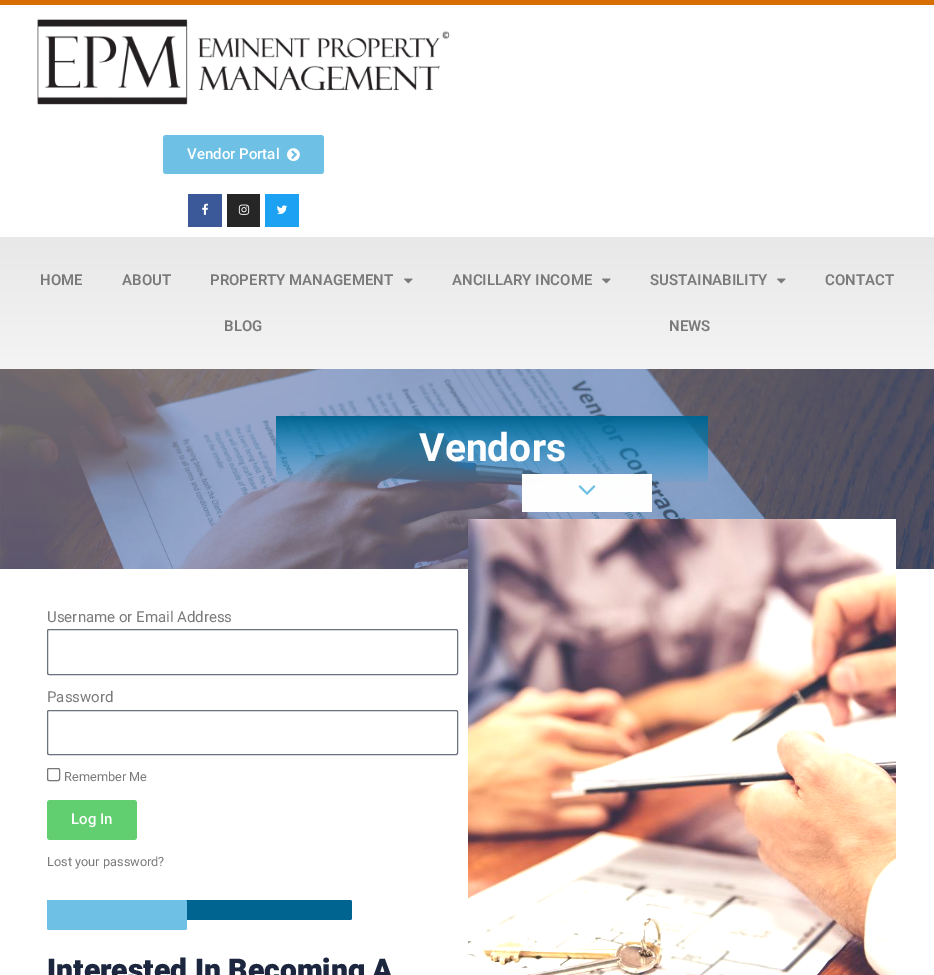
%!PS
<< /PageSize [934 975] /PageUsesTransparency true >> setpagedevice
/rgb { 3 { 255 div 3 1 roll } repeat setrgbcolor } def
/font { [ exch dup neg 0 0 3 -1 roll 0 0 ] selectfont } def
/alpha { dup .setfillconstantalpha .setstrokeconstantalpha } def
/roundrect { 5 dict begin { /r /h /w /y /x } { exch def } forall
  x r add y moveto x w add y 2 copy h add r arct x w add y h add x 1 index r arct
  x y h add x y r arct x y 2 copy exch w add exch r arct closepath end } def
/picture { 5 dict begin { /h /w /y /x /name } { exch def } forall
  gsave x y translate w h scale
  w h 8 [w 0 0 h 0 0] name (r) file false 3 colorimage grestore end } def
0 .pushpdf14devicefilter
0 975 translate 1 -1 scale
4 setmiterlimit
255 255 255 rgb
0 0 934 975 rectfill
216 109 2 rgb
0 0 934 5 rectfill
(img/1.rgb) 37 19 413 86 picture
110 193 228 rgb
163 135 161 39 3 roundrect fill
(img/2.rgb) 287 148 13 14 picture
59 89 152 rgb
188 194 34 33 rectfill
(img/3.rgb) 202 203 6 12 picture
38 38 38 rgb
227 194 33 33 rectfill
(img/4.rgb) 238 204 12 11 picture
29 161 242 rgb
265 194 34 33 rectfill
(img/5.rgb) 277 205 11 9 picture
gsave 0 237 moveto 934 237 lineto 934 369 lineto 0 369 lineto closepath clip newpath
<< /ShadingType 2 /ColorSpace /DeviceRGB /Coords [467 237 467 369] /Extend [true true] /Function << /FunctionType 2 /Domain [0 1] /C0 [0.91 0.91 0.91] /C1 [0.957 0.957 0.957] /N 1 >> >> shfill grestore
(img/6.rgb) 404 278 9 6 picture
(img/6.rgb) 602 278 9 6 picture
(img/6.rgb) 777 278 9 6 picture
(img/7.rgb) 0 369 934 200 picture
0.99 alpha
255 255 255 rgb
522 474 130 38 rectfill
1 alpha
(img/8.rgb) 578 485 18 10 picture
105 114 125 rgb
47.5 629.5 410 45 1.5 roundrect stroke
47.5 710.5 410 44 1.5 roundrect stroke
118 118 118 rgb
47.5 768.5 12 12 1.5 roundrect stroke
97 206 112 rgb
47 800 90 40 3 roundrect fill
0 100 144 rgb
47 900 305 20 2 roundrect fill
110 193 228 rgb
47 900 140 30 2 roundrect fill
(img/9.rgb) 468 519 428 456 picture
/Roboto-Medium 15 font
255 255 255 rgb
187 159 moveto (Vendor Portal) show
/Roboto-SemiBold 15 font
122 122 122 rgb
[
  [(HOME) 40 285]
  [(ABOUT) 122 285]
  [(PROPERTY MANAGEMENT) 210 285]
  [(ANCILLARY INCOME) 452 285]
  [(SUSTAINABILITY) 650 285]
  [(CONTACT) 825 285]
  [(BLOG) 224 331]
  [(NEWS) 669 331]
] { aload pop moveto show } forall
/Heebo-Bold 39 font
255 255 255 rgb
419 461 moveto (Vendors) show
/Roboto-Regular 15 font
122 122 122 rgb
47 622 moveto (Username or Email Address) show
47 702 moveto (Password) show
/Roboto-Regular 12.75 font
64 781 moveto (Remember Me) show
/Roboto-Medium 15 font
255 255 255 rgb
71 824 moveto (Log In) show
/Roboto-Regular 12.75 font
122 122 122 rgb
47 866 moveto (Lost your password?) show
/Heebo-Black 30 font
28 38 63 rgb
47 980 moveto (Interested In Becoming A) show
.poppdf14devicefilter showpage
